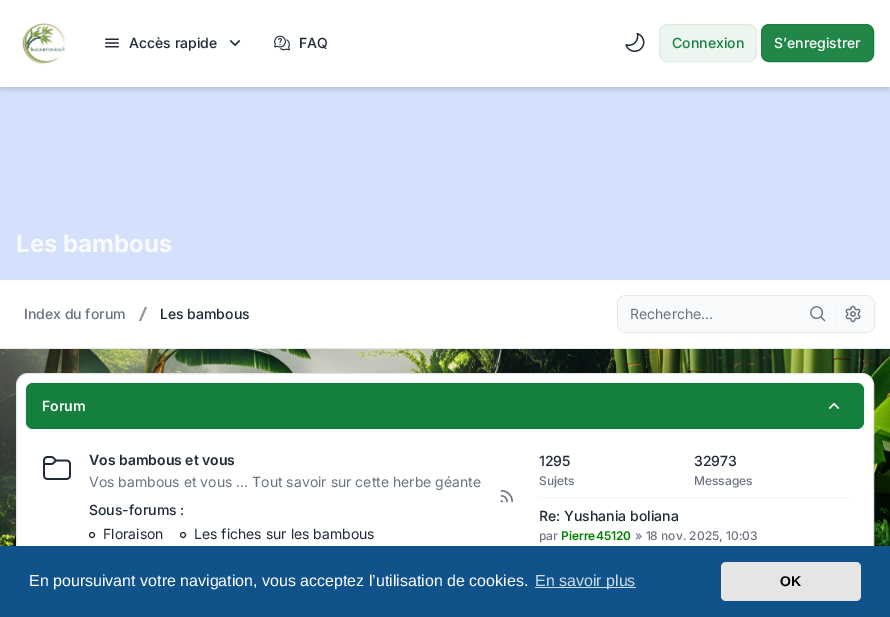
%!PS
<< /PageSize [890 617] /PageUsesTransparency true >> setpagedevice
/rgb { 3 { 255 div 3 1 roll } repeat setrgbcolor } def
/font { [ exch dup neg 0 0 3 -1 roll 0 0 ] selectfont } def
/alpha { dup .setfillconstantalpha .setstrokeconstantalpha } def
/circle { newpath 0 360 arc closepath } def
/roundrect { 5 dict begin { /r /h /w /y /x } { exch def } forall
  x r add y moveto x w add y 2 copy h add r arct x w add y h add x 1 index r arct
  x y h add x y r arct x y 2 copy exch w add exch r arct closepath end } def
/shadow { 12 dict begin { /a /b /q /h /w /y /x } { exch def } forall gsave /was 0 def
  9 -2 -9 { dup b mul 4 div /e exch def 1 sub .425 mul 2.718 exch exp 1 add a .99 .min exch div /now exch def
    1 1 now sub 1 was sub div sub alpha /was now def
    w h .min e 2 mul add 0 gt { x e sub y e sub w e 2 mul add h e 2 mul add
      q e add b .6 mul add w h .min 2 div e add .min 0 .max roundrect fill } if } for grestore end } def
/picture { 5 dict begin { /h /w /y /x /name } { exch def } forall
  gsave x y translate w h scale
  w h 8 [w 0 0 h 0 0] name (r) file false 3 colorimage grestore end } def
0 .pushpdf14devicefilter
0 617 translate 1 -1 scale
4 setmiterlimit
212 224 252 rgb
0 0 890 617 rectfill
0 0 0 rgb
2 4 886 83 0 2 0.1 shadow
1 5 888 85 0 3 0.1 shadow
255 255 255 rgb
0 0 890 87 rectfill
(img/1.rgb) 22 23 44 42 picture
(img/2.rgb) 105 38 14 10 picture
(img/3.rgb) 229 40 12 7 picture
(img/4.rgb) 274 35 16 16 picture
(img/5.rgb) 625 32 20 20 picture
236 245 239 rgb
659 24 98 38 8 roundrect fill
0.08 alpha
21 128 61 rgb
659.5 24.5 97 37 7.5 roundrect stroke
1 alpha
33 134 71 rgb
761.5 24.5 112 37 7.5 roundrect gsave fill grestore
21 128 61 rgb
stroke
255 255 255 rgb
0 280 890 68 rectfill
229 231 235 rgb
0 348 890 1 rectfill
143 148 155 rgb
139 321 moveto 145 307 lineto 147 307 lineto 141 321 lineto closepath fill
229 231 235 rgb
617.5 295.5 257 37 8.5 roundrect stroke
249 250 251 rgb
618 296 256 36 8 roundrect fill
(img/6.rgb) 810 306 16 16 picture
243 244 246 rgb
835 302 1 24 rectfill
(img/7.rgb) 845 305 16 18 picture
(img/8.rgb) 0 349 890 197 picture
255 255 255 rgb
16.5 373.5 857 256 11.5 roundrect gsave fill grestore
229 231 235 rgb
stroke
243 244 246 rgb
25.5 382.5 839 47 7.5 roundrect stroke
21 128 61 rgb
26 383 838 46 7 roundrect fill
(img/9.rgb) 828 402 12 7 picture
(img/10.rgb) 43 456 28 24 picture
31 41 55 rgb
92 535 2.5 circle stroke
183 535 2.5 circle stroke
(img/11.rgb) 500 490 13 13 picture
[
  [539 497 310 1 243 244 246]
  [0 546 890 71 15 83 138]
  [535 587 101 1 207 221 232]
] { aload pop rgb rectfill } forall
229 229 229 rgb
721 562 140 39 5 roundrect fill
/Inter-Medium 14 font
31 41 55 rgb
129 48 moveto (Accès rapide) show
299 48 moveto (FAQ) show
21 128 61 rgb
672 48 moveto (Connexion) show
255 255 255 rgb
774 48 moveto (S’enregistrer) show
/Inter-Bold 24 font
248 250 252 rgb
16 252 moveto (Les bambous) show
/Inter-Medium 14 font
107 114 128 rgb
24 319 moveto (Index du forum) show
31 41 55 rgb
160 319 moveto (Les bambous) show
/Inter-Regular 14 font
107 114 128 rgb
630 319 moveto (Recherche…) show
/Inter-SemiBold 14 font
255 255 255 rgb
42 411 moveto (Forum) show
31 41 55 rgb
89 465 moveto (Vos bambous et vous) show
/Inter-Regular 14 font
107 114 128 rgb
89 487 moveto (Vos bambous et vous ... Tout savoir sur cette herbe géante) show
/Inter-Medium 14 font
31 41 55 rgb
89 515 moveto (Sous-forums :) show
/Inter-Regular 14 font
103 539 moveto (Floraison) show
194 539 moveto (Les fiches sur les bambous) show
/Inter-Medium 14 font
539 466 moveto (1295) show
/Inter-Medium 12 font
107 114 128 rgb
539 485 moveto (Sujets) show
/Inter-Medium 14 font
31 41 55 rgb
694 466 moveto (32973) show
/Inter-Medium 12 font
107 114 128 rgb
694 485 moveto (Messages) show
/Inter-Medium 14 font
31 41 55 rgb
539 521 moveto (Re: Yushania boliana) show
/Inter-Medium 12 font
107 114 128 rgb
539 540 moveto (par) show
/Inter-SemiBold 12 font
0 128 0 rgb
561 540 moveto (Pierre45120) show
/Inter-Medium 12 font
107 114 128 rgb
635 540 moveto (» 18 nov. 2025, 10:03) show
/LiberationSans-Regular 16 font
255 255 255 rgb
29 586 moveto (En poursuivant votre navigation, vous acceptez l’utilisation de cookies.) show
207 221 232 rgb
535 586 moveto (En savoir plus) show
/LiberationSans-Bold 14 font
0 0 0 rgb
780 586 moveto (OK) show
.poppdf14devicefilter showpage
